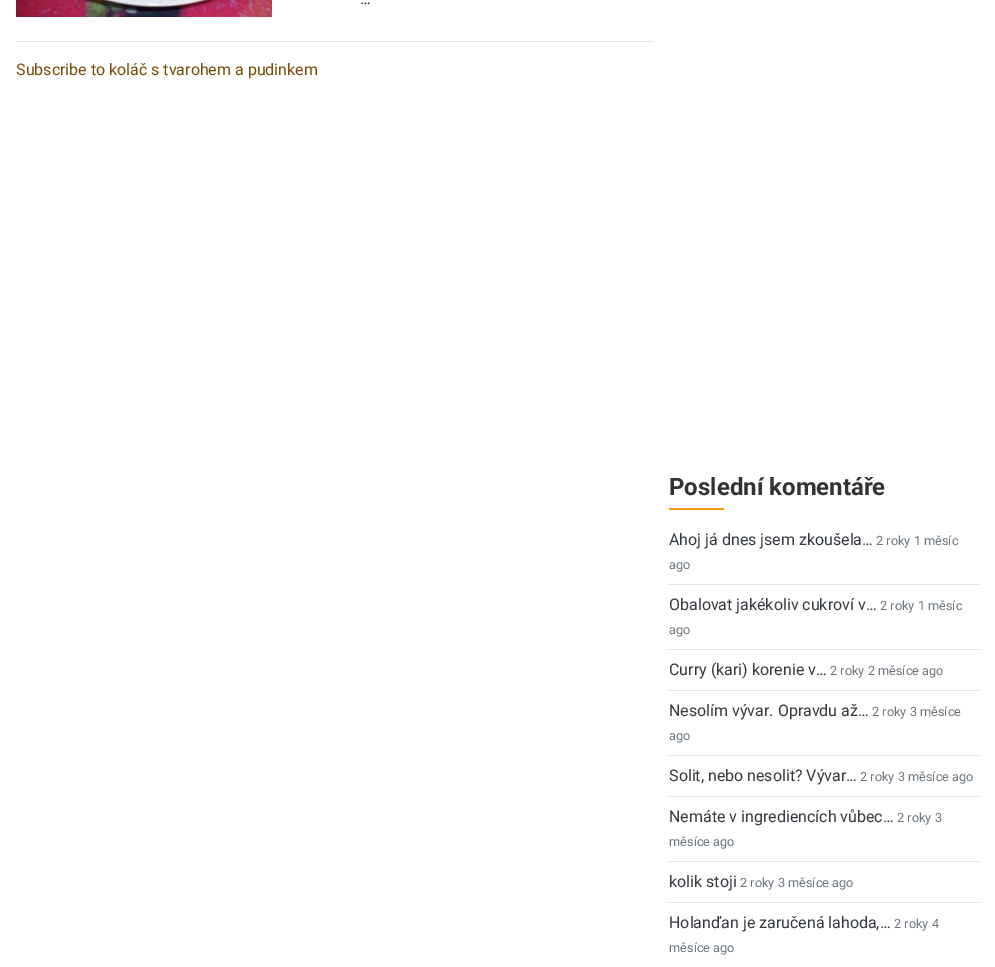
%!PS
<< /PageSize [995 967] >> setpagedevice
/rgb { 3 { 255 div 3 1 roll } repeat setrgbcolor } def
/font { [ exch dup neg 0 0 3 -1 roll 0 0 ] selectfont } def
/picture { 5 dict begin { /h /w /y /x /name } { exch def } forall
  gsave x y translate w h scale
  w h 8 [w 0 0 h 0 0] name (r) file false 3 colorimage grestore end } def
0 967 translate 1 -1 scale
4 setmiterlimit
255 255 255 rgb
0 0 995 967 rectfill
222 226 230 rgb
16 41 637 1 rectfill
(img/1.rgb) 16 0 256 17 picture
[
  [669 508 55 2 239 152 17]
  [669 584 310 1 222 226 230]
  [669 649 310 1 222 226 230]
  [669 690 310 1 222 226 230]
  [669 755 310 1 222 226 230]
  [669 796 310 1 222 226 230]
  [669 861 310 1 222 226 230]
  [669 902 310 1 222 226 230]
] { aload pop rgb rectfill } forall
/Roboto-Regular 16 font
51 51 51 rgb
360 4 moveto (…) show
119 76 8 rgb
16 75 moveto (Subscribe to koláč s tvarohem a pudinkem) show
/Roboto-Bold 24 font
51 51 51 rgb
669 495 moveto (Poslední komentáře) show
/Roboto-Regular 16 font
52 58 64 rgb
669 545 moveto (Ahoj já dnes jsem zkoušela…) show
/Roboto-Regular 12.75 font
108 117 125 rgb
876 545 moveto (2 roky 1 měsíc) show
669 569 moveto (ago) show
/Roboto-Regular 16 font
52 58 64 rgb
669 610 moveto (Obalovat jakékoliv cukroví v…) show
/Roboto-Regular 12.75 font
108 117 125 rgb
880 610 moveto (2 roky 1 měsíc) show
669 634 moveto (ago) show
/Roboto-Regular 16 font
52 58 64 rgb
669 675 moveto (Curry \(kari\) korenie v…) show
/Roboto-Regular 12.75 font
108 117 125 rgb
830 675 moveto (2 roky 2 měsíce ago) show
/Roboto-Regular 16 font
52 58 64 rgb
669 716 moveto (Nesolím vývar. Opravdu až…) show
/Roboto-Regular 12.75 font
108 117 125 rgb
872 716 moveto (2 roky 3 měsíce) show
669 740 moveto (ago) show
/Roboto-Regular 16 font
52 58 64 rgb
669 781 moveto (Solit, nebo nesolit? Vývar…) show
/Roboto-Regular 12.75 font
108 117 125 rgb
860 781 moveto (2 roky 3 měsíce ago) show
/Roboto-Regular 16 font
52 58 64 rgb
669 822 moveto (Nemáte v ingrediencích vůbec…) show
/Roboto-Regular 12.75 font
108 117 125 rgb
897 822 moveto (2 roky 3) show
669 846 moveto (měsíce ago) show
/Roboto-Regular 16 font
52 58 64 rgb
669 887 moveto (kolik stoji) show
/Roboto-Regular 12.75 font
108 117 125 rgb
740 887 moveto (2 roky 3 měsíce ago) show
/Roboto-Regular 16 font
52 58 64 rgb
669 928 moveto (Holanďan je zaručená lahoda,…) show
/Roboto-Regular 12.75 font
108 117 125 rgb
894 928 moveto (2 roky 4) show
669 952 moveto (měsíce ago) show
showpage
